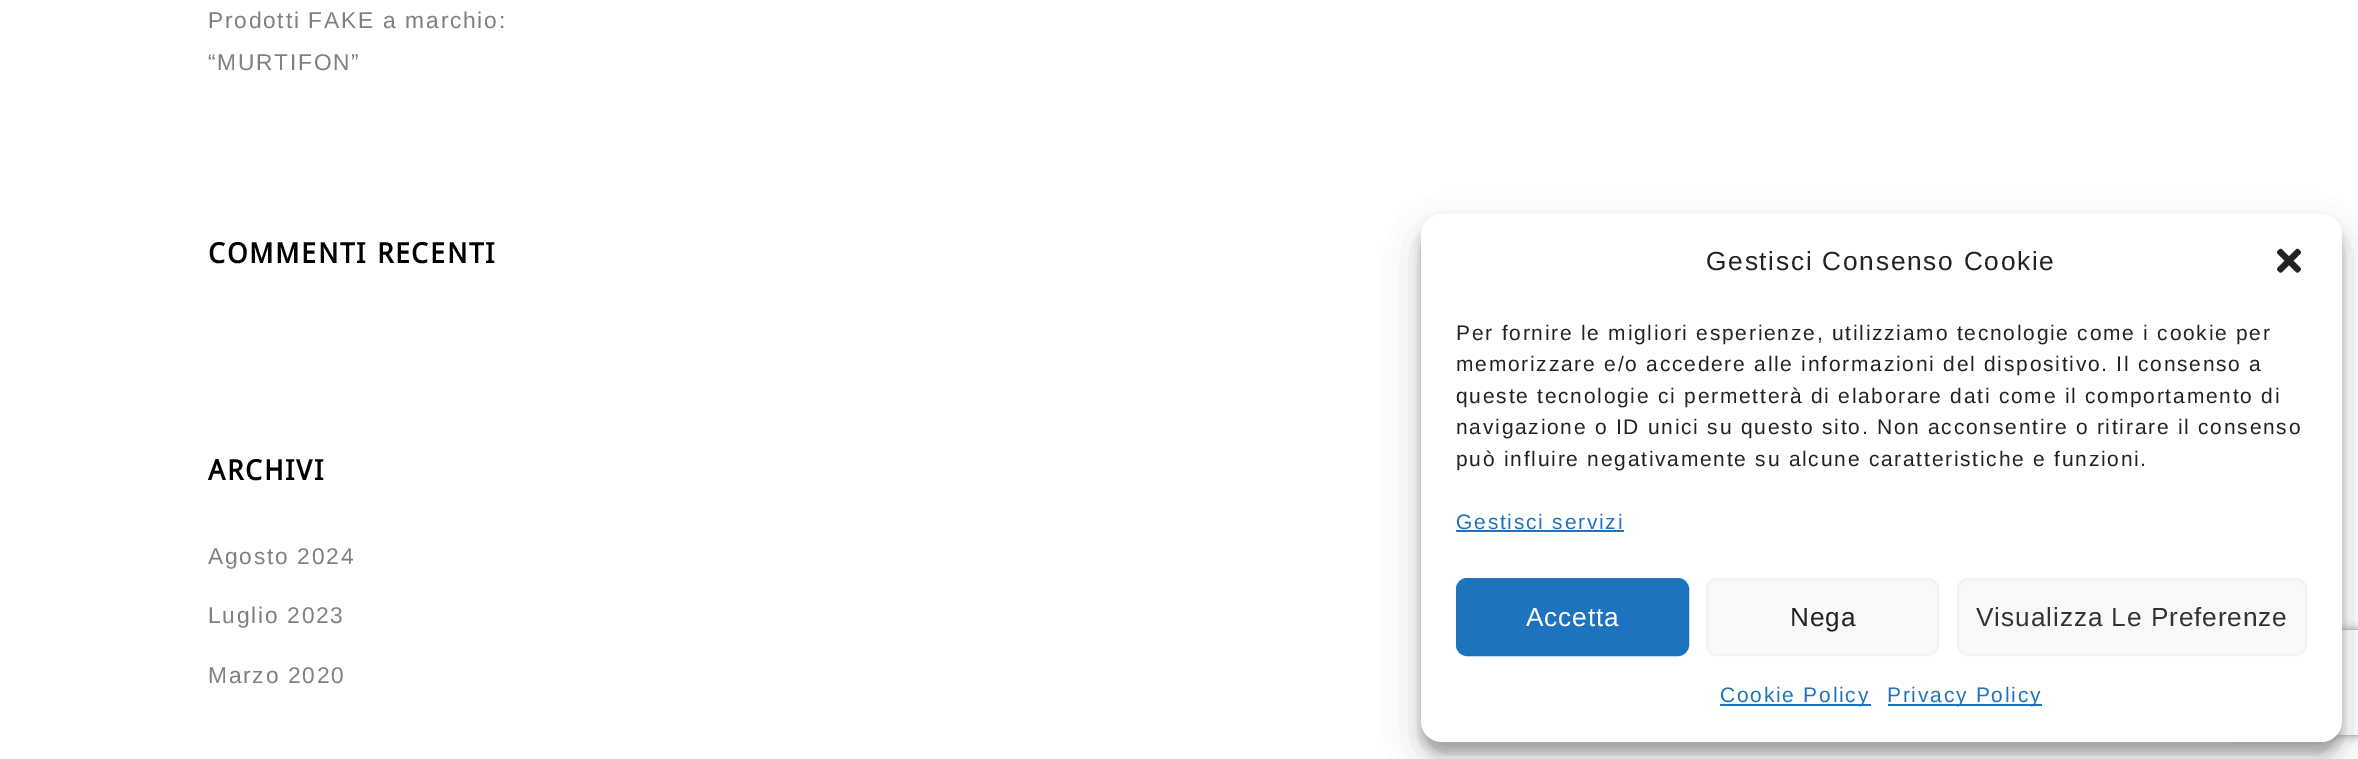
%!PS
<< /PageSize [2358 759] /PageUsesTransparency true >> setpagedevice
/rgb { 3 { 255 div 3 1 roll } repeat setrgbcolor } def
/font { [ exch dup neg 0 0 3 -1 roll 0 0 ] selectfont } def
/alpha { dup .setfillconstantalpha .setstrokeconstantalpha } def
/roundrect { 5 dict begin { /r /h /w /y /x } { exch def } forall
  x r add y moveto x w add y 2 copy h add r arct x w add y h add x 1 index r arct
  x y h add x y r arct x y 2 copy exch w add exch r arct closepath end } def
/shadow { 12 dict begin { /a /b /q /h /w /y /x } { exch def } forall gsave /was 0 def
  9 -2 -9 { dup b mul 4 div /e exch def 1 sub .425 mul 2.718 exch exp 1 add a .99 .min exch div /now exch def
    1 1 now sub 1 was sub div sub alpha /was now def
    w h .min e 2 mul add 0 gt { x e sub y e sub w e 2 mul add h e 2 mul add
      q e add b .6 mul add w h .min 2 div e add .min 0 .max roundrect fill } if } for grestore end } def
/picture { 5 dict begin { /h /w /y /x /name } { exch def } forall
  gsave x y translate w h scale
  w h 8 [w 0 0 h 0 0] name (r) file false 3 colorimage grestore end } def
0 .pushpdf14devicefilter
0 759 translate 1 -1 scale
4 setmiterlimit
255 255 255 rgb
0 0 2358 759 rectfill
0 0 0 rgb
1421 224 921 529 21 5 0.23 shadow
1421 231 921 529 21 17.5 0.19 shadow
gsave
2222 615 moveto 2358 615 lineto 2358 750 lineto 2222 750 lineto closepath 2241 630 moveto 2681 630 lineto 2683 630 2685 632 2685 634 curveto 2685 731 lineto 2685 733 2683 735 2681 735 curveto 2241 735 lineto 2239 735 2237 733 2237 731 curveto 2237 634 lineto 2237 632 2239 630 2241 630 curveto closepath eoclip newpath
128 128 128 rgb
2237 630 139 105 4 4.5 1 shadow
grestore
255 255 255 rgb
1421 214 921 528 21 roundrect fill
(img/1.rgb) 2277 248 24 25 picture
30 115 190 rgb
1456 530 168 2 rectfill
1457 579 231 76 10 roundrect gsave fill grestore
2 setlinewidth
stroke
249 249 249 rgb
1707 579 231 76 10 roundrect gsave fill grestore
242 242 242 rgb
stroke
249 249 249 rgb
1958 579 348 76 10 roundrect gsave fill grestore
242 242 242 rgb
stroke
30 115 190 rgb
1720 704 151 2 rectfill
1888 704 154 2 rectfill
/LiberationSans-Regular 22.75 font
128 128 128 rgb
208 28 moveto 1.75 0 (Prodotti FAKE a marchio:) ashow
208 70 moveto 1.75 0 (“MURTIFON”) ashow
/DroidSans-Bold 28 font
0 0 0 rgb
208 263 moveto 1.75 0 (COMMENTI RECENTI) ashow
208 480 moveto 1.75 0 (ARCHIVI) ashow
/LiberationSans-Regular 22.75 font
128 128 128 rgb
208 564 moveto 1.75 0 (Agosto 2024) ashow
208 623 moveto 1.75 0 (Luglio 2023) ashow
208 683 moveto 1.75 0 (Marzo 2020) ashow
/LiberationSans-Regular 26.25 font
34 34 34 rgb
1706 270 moveto 1.75 0 (Gestisci Consenso Cookie) ashow
/LiberationSans-Regular 21 font
1456 340 moveto 1.75 0 (Per fornire le migliori esperienze, utilizziamo tecnologie come i cookie per) ashow
1456 371 moveto 1.75 0 (memorizzare e/o accedere alle informazioni del dispositivo. Il consenso a) ashow
1456 403 moveto 1.75 0 (queste tecnologie ci permetterà di elaborare dati come il comportamento di) ashow
1456 434 moveto 1.75 0 (navigazione o ID unici su questo sito. Non acconsentire o ritirare il consenso) ashow
1456 466 moveto 1.75 0 (può influire negativamente su alcune caratteristiche e funzioni.) ashow
30 115 190 rgb
1456 529 moveto 1.75 0 (Gestisci servizi) ashow
/LiberationSans-Regular 26.25 font
255 255 255 rgb
1526 626 moveto 0.9 0 (Accetta) ashow
34 34 34 rgb
1790 626 moveto 0.9 0 (Nega) ashow
51 51 51 rgb
1976 626 moveto 0.9 0 (Visualizza Le Preferenze) ashow
/LiberationSans-Regular 21 font
30 115 190 rgb
1720 702 moveto 1.75 0 (Cookie Policy) ashow
1887 702 moveto 1.75 0 (Privacy Policy) ashow
.poppdf14devicefilter showpage
